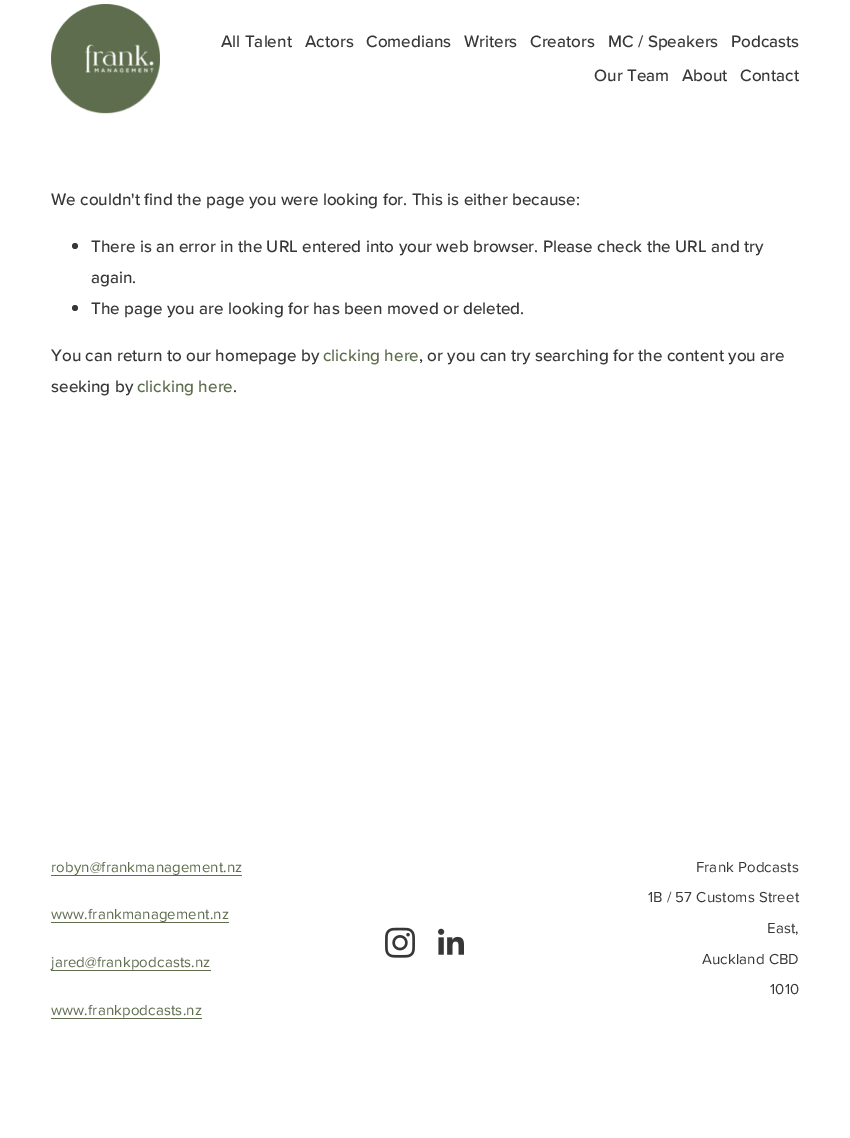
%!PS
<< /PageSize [850 1138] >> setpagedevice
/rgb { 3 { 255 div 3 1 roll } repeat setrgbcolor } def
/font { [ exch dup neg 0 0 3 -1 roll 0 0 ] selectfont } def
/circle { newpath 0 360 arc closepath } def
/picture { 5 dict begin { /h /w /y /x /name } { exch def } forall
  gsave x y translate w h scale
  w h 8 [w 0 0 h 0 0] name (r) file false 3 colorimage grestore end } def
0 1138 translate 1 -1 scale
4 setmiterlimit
255 255 255 rgb
0 0 850 1138 rectfill
(img/1.rgb) 51 4 109 110 picture
56 55 55 rgb
75 246 3 circle fill
75 308 3 circle fill
[
  [51 875 191 1 94 109 77]
  [51 922 178 1 94 109 77]
  [51 970 160 1 94 109 77]
  [51 1018 151 1 94 109 77]
] { aload pop rgb rectfill } forall
(img/2.rgb) 385 927 30 31 picture
(img/3.rgb) 438 928 26 27 picture
/ProximaNova-Medium 17.05 font
56 55 55 rgb
[
  [(All Talent) 221 47]
  [(Actors) 305 47]
  [(Comedians) 366 47]
  [(Writers) 464 47]
  [(Creators) 530 47]
  [(MC / Speakers) 608 47]
  [(Podcasts) 731 47]
  [(Our Team) 594 81]
  [(About) 682 81]
  [(Contact) 740 81]
  [(We couldn't find the page you were looking for. This is either because:) 51 205]
  [(There is an error in the URL entered into your web browser. Please check the URL and try) 91 252]
  [(again.) 91 283]
  [(The page you are looking for has been moved or deleted.) 91 314]
  [(You can return to our homepage by) 51 361]
] { aload pop moveto show } forall
94 109 77 rgb
323 361 moveto (clicking here) show
56 55 55 rgb
419 361 moveto (, or you can try searching for the content you are) show
51 392 moveto (seeking by) show
94 109 77 rgb
137 392 moveto (clicking here) show
56 55 55 rgb
233 392 moveto (.) show
/ProximaNova-Regular 15 font
94 109 77 rgb
51 872 moveto 0.15 0 (robyn@frankmanagement.nz) ashow
51 919 moveto 0.15 0 (www.frankmanagement.nz) ashow
51 967 moveto 0.15 0 (jared@frankpodcasts.nz) ashow
51 1015 moveto 0.15 0 (www.frankpodcasts.nz) ashow
56 55 55 rgb
696 872 moveto 0.15 0 (Frank Podcasts) ashow
648 902 moveto 0.15 0 (1B / 57 Customs Street) ashow
767 933 moveto 0.15 0 (East,) ashow
702 964 moveto 0.15 0 (Auckland CBD) ashow
770 994 moveto 0.15 0 (1010) ashow
showpage
